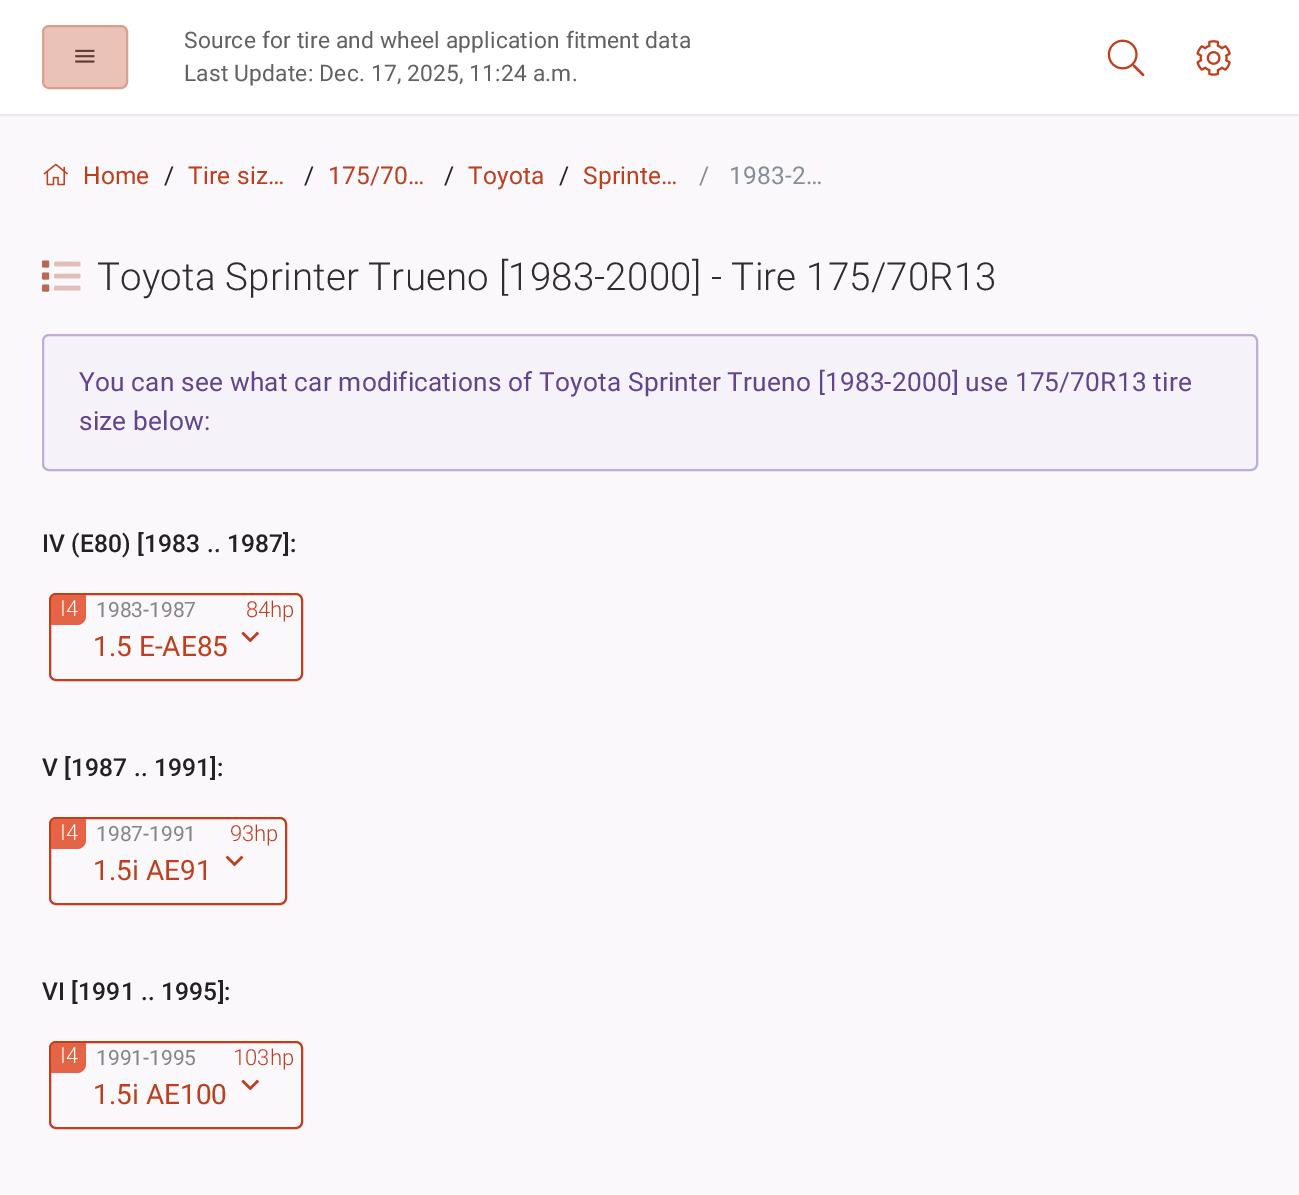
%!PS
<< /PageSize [1299 1195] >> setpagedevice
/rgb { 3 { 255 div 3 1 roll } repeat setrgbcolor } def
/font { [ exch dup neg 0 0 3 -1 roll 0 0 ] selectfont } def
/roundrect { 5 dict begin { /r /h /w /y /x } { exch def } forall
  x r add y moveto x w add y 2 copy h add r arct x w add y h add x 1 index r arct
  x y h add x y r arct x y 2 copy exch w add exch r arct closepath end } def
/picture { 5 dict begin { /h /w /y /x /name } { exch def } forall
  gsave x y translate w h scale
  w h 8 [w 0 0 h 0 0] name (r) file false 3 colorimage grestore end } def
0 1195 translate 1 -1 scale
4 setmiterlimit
255 255 255 rgb
0 0 1299 1195 rectfill
234 234 234 rgb
0 114 1299 2 rectfill
235 194 183 rgb
43 26 84 62 6 roundrect gsave fill grestore
217 160 145 rgb
2 setlinewidth
stroke
(img/1.rgb) 75 49 20 14 picture
(img/2.rgb) 1107 39 38 38 picture
(img/3.rgb) 1196 40 35 36 picture
250 248 251 rgb
0 116 1299 1079 rectfill
(img/4.rgb) 43 163 25 23 picture
(img/5.rgb) 42 260 8 32 picture
(img/6.rgb) 54 261 27 30 picture
245 242 249 rgb
43 335 1214 135 6 roundrect gsave fill grestore
190 174 215 rgb
stroke
190 62 29 rgb
50 594 252 86 6 roundrect stroke
227 101 69 rgb
56 595 moveto 86 595 lineto 86 616 lineto 86 621 82 625 77 625 curveto 51 625 lineto 51 600 lineto 51 597 53 595 56 595 curveto closepath fill
(img/7.rgb) 241 631 18 12 picture
190 62 29 rgb
50 818 236 86 6 roundrect stroke
227 101 69 rgb
56 819 moveto 86 819 lineto 86 840 lineto 86 845 82 849 77 849 curveto 51 849 lineto 51 824 lineto 51 821 53 819 56 819 curveto closepath fill
(img/8.rgb) 225 855 19 12 picture
190 62 29 rgb
50 1042 252 86 6 roundrect stroke
227 101 69 rgb
56 1043 moveto 86 1043 lineto 86 1064 lineto 86 1069 82 1073 77 1073 curveto 51 1073 lineto 51 1048 lineto 51 1045 53 1043 56 1043 curveto closepath fill
(img/7.rgb) 241 1079 18 12 picture
/Roboto-Regular 22.75 font
97 97 97 rgb
184 48 moveto 0.18 0 (Source for tire and wheel application fitment data) ashow
184 81 moveto 0.18 0 (Last Update: Dec. 17, 2025, 11:24 a.m.) ashow
/Roboto-Regular 24.5 font
190 62 29 rgb
83 184 moveto 0.18 0 (Home) ashow
34 34 34 rgb
164 184 moveto 0.18 0 (/) ashow
190 62 29 rgb
188 184 moveto 0.18 0 (Tire siz…) ashow
34 34 34 rgb
304 184 moveto 0.18 0 (/) ashow
190 62 29 rgb
328 184 moveto 0.18 0 (175/70…) ashow
34 34 34 rgb
444 184 moveto 0.18 0 (/) ashow
190 62 29 rgb
468 184 moveto 0.18 0 (Toyota) ashow
34 34 34 rgb
559 184 moveto 0.18 0 (/) ashow
190 62 29 rgb
583 184 moveto 0.18 0 (Sprinte…) ashow
134 142 150 rgb
699 184 moveto 0.18 0 (/) ashow
729 184 moveto 0.18 0 (1983-2…) ashow
/Roboto-Light 38.5 font
46 46 46 rgb
97 290 moveto 0.18 0 (Toyota Sprinter Trueno [1983-2000] - Tire 175/70R13) ashow
/Roboto-Regular 26.25 font
98 70 141 rgb
79 391 moveto 0.18 0 (You can see what car modifications of Toyota Sprinter Trueno [1983-2000] use 175/70R13 tire) ashow
79 430 moveto 0.18 0 (size below:) ashow
/Roboto-Medium 24.5 font
34 34 34 rgb
42 552 moveto 0.18 0 (IV \(E80\) [1983 .. 1987]:) ashow
/Roboto-Light 22 font
255 255 255 rgb
60 616 moveto (I4) show
/Roboto-Regular 21 font
134 133 134 rgb
96 617 moveto (1983-1987) show
/Roboto-Light 22 font
190 62 29 rgb
246 617 moveto (84hp) show
/Roboto-Regular 28 font
93 656 moveto (1.5 E-AE85) show
/Roboto-Medium 24.5 font
34 34 34 rgb
42 776 moveto 0.18 0 (V [1987 .. 1991]:) ashow
/Roboto-Light 22 font
255 255 255 rgb
60 840 moveto (I4) show
/Roboto-Regular 21 font
134 133 134 rgb
96 841 moveto (1987-1991) show
/Roboto-Light 22 font
190 62 29 rgb
230 841 moveto (93hp) show
/Roboto-Regular 28 font
93 880 moveto (1.5i AE91) show
/Roboto-Medium 24.5 font
34 34 34 rgb
42 1000 moveto 0.18 0 (VI [1991 .. 1995]:) ashow
/Roboto-Light 22 font
255 255 255 rgb
60 1063 moveto (I4) show
/Roboto-Regular 21 font
134 133 134 rgb
96 1065 moveto (1991-1995) show
/Roboto-Light 22 font
190 62 29 rgb
233 1065 moveto (103hp) show
/Roboto-Regular 28 font
93 1104 moveto (1.5i AE100) show
showpage
